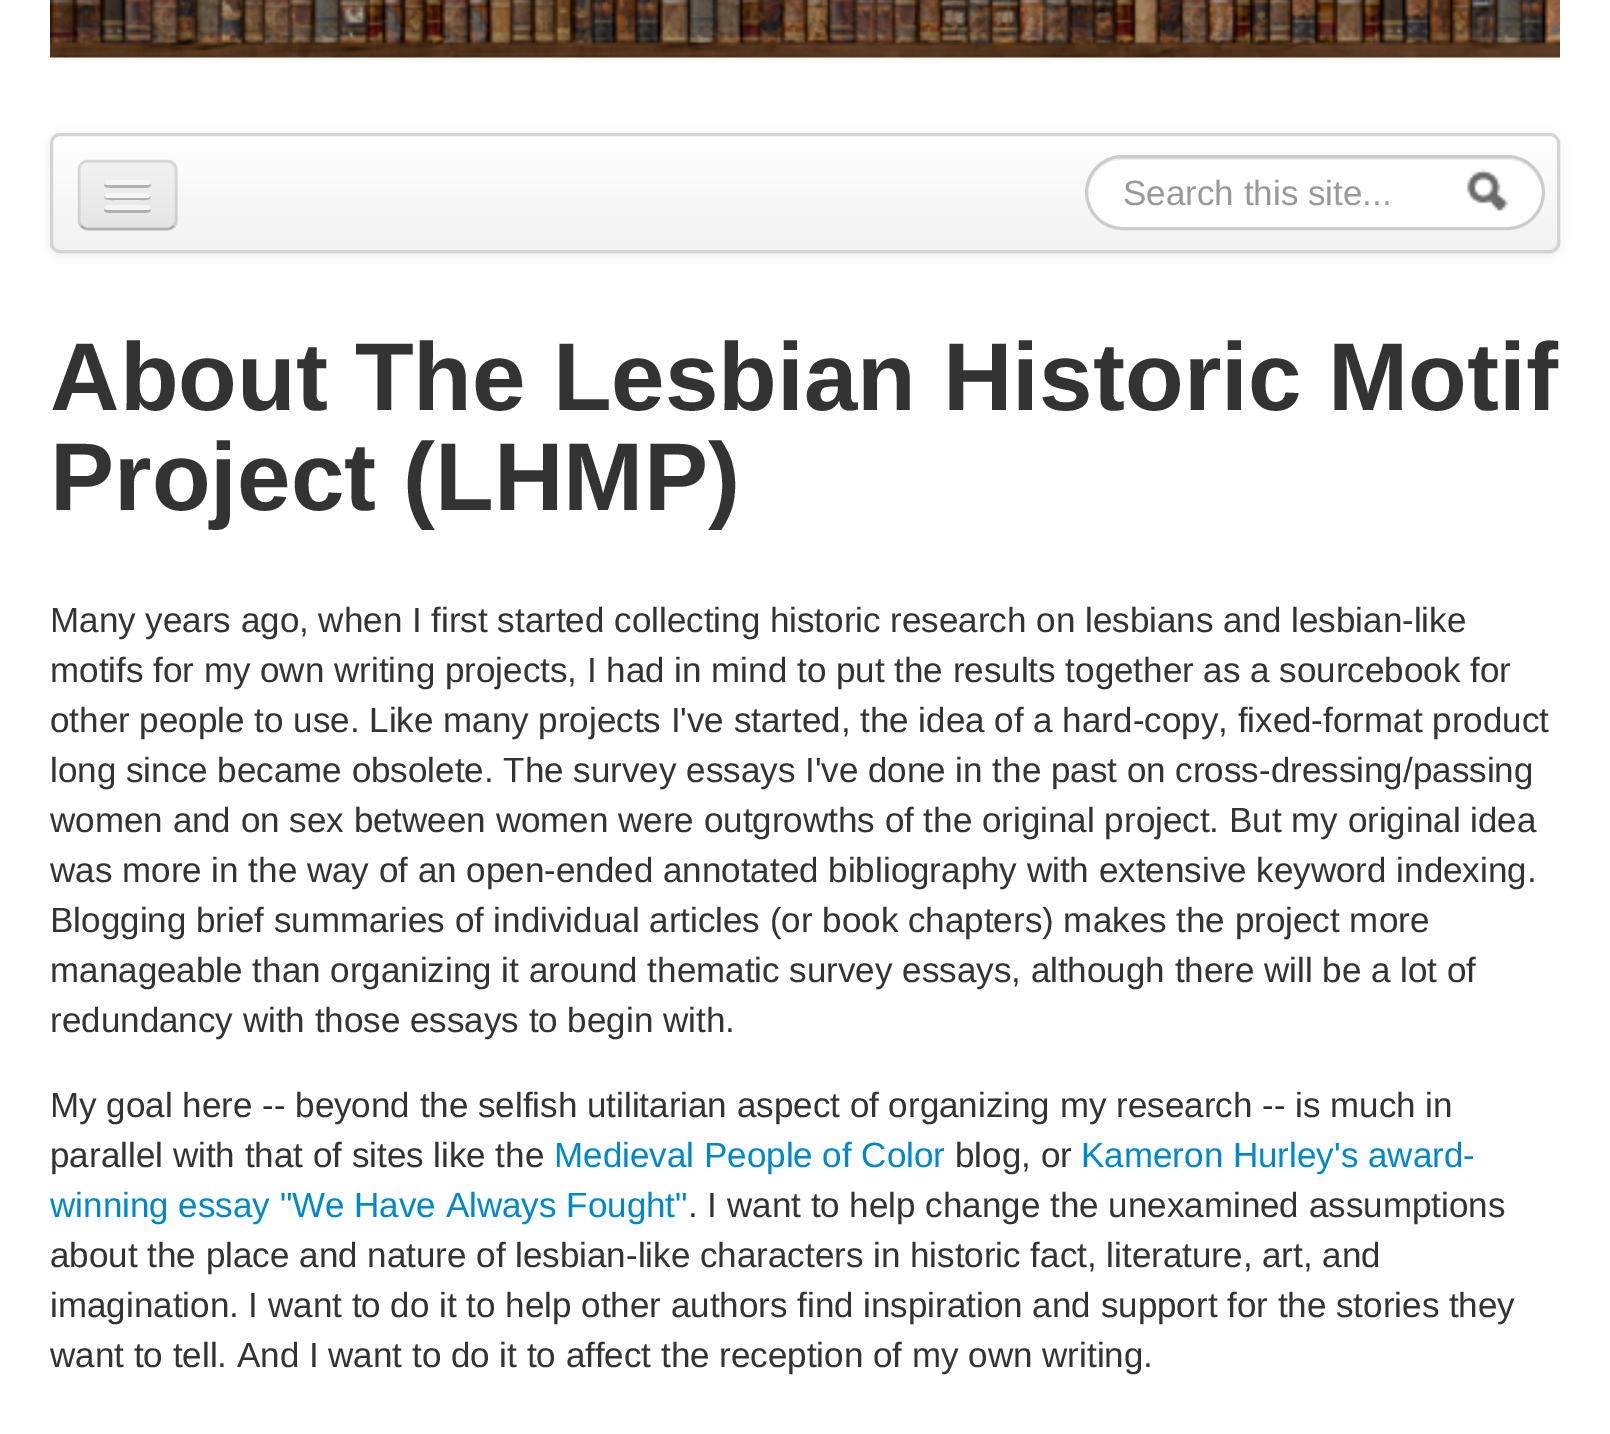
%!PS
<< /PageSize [1610 1434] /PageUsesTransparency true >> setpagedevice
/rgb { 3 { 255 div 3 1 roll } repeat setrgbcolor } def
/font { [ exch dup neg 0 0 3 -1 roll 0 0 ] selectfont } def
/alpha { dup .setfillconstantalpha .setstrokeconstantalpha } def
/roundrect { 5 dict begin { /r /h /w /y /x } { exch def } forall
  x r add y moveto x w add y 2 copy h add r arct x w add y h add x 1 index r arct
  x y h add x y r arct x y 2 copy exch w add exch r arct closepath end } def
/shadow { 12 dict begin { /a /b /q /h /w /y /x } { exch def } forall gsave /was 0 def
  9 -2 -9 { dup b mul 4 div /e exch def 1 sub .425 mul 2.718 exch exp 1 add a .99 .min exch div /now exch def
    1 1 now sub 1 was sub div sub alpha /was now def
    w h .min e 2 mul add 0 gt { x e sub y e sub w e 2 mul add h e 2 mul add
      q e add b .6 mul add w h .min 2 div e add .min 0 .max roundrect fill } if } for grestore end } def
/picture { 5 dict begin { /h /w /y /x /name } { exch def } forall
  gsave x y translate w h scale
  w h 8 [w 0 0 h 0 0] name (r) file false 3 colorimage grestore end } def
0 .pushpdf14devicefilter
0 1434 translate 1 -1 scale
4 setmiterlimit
255 255 255 rgb
0 0 1610 1434 rectfill
(img/1.rgb) 50 0 1510 58 picture
0 0 0 rgb
50 135 1510 120 10 5 0.07 shadow
gsave
50 133 1510 120 10 roundrect clip newpath
gsave 50 135 moveto 1560 135 lineto 1560 250 lineto 50 250 lineto closepath clip newpath
<< /ShadingType 2 /ColorSpace /DeviceRGB /Coords [805 135 805 250] /Extend [true true] /Function << /FunctionType 2 /Domain [0 1] /C0 [1 1 1] /C1 [0.949 0.949 0.949] /N 1 >> >> shfill grestore
grestore
212 212 212 rgb
3 setlinewidth
51.5 134.5 1507 117 8.5 roundrect stroke
237 237 237 rgb
78 160 100 70 10 roundrect fill
gsave
78 160 100 70 10 roundrect clip newpath
gsave 78 163 moveto 178 163 lineto 178 228 lineto 78 228 lineto closepath clip newpath
<< /ShadingType 2 /ColorSpace /DeviceRGB /Coords [128 163 128 228] /Extend [true true] /Function << /FunctionType 2 /Domain [0 1] /C0 [0.949 0.949 0.949] /C1 [0.898 0.898 0.898] /N 1 >> >> shfill grestore
grestore
0.25 alpha
0 0 0 rgb
2.5 setlinewidth
173.5 226 moveto 172 228 170 229 167.5 229 curveto 87.5 229 lineto 85 229 83 228 81.5 226 curveto stroke
0.1 alpha
81.5 226 moveto 79.5 224.5 79 222.5 79 220 curveto 79 170 lineto 79 167.5 79.5 165.5 81.5 164 curveto 83 162 85 161 87.5 161 curveto 167.5 161 lineto 170 161 172 162 173.5 164 curveto 175.5 165.5 176 167.5 176 170 curveto 176 220 lineto 176 222.5 175.5 224.5 173.5 226 curveto stroke
1 alpha
178 178 178 rgb
105 184 moveto 102 188 110 188 114 188 curveto 141 188 lineto 145 188 153 188 150 184 curveto 148 185 lineto 107 185 lineto closepath fill
245 245 245 rgb
105 180 45 5 2.5 roundrect fill
176 176 176 rgb
105 196 moveto 102 201 114 200 114 200 curveto 141 200 lineto 141 200 153 201 150 196 curveto 149 197 148 198 148 198 curveto 108 198 lineto 107 198 106 197 105 196 curveto closepath fill
245 245 245 rgb
105 193 45 5 2.5 roundrect fill
174 174 174 rgb
105 209 moveto 102 213 110 213 114 213 curveto 141 213 lineto 145 213 153 213 150 209 curveto 148 210 lineto 107 210 lineto closepath fill
245 245 245 rgb
105 205 45 5 2.5 roundrect fill
255 255 255 rgb
1085 155 460 75 37.5 roundrect fill
236 236 236 rgb
1122 160 moveto 1508 160 lineto 1527 160 1542 176 1542 195 curveto 1542 200 1541 205 1539 209 curveto 1542 204 1543 199 1543 193 curveto 1543 174 1527 158 1508 158 curveto 1123 158 lineto 1104 158 1088 174 1088 193 curveto 1088 194 lineto 1089 175 1103 160 1122 160 curveto closepath fill
204 204 204 rgb
3 setlinewidth
1086.5 156.5 457 72 36 roundrect stroke
(img/2.rgb) 1466 169 43 44 picture
/LiberationSans-Regular 35 font
153 153 153 rgb
1123 205 moveto (Search this site...) show
/LiberationSans-Bold 96.25 font
51 51 51 rgb
50 410 moveto (About The Lesbian Historic Motif) show
50 510 moveto (Project \(LHMP\)) show
/LiberationSans-Regular 35 font
[
  [(Many years ago, when I first started collecting historic research on lesbians and lesbian-like) 50 632]
  [(motifs for my own writing projects, I had in mind to put the results together as a sourcebook for) 50 682]
  [(other people to use. Like many projects I've started, the idea of a hard-copy, fixed-format product) 50 732]
  [(long since became obsolete. The survey essays I've done in the past on cross-dressing/passing) 50 782]
  [(women and on sex between women were outgrowths of the original project. But my original idea) 50 832]
  [(was more in the way of an open-ended annotated bibliography with extensive keyword indexing.) 50 882]
  [(Blogging brief summaries of individual articles \(or book chapters\) makes the project more) 50 932]
  [(manageable than organizing it around thematic survey essays, although there will be a lot of) 50 982]
  [(redundancy with those essays to begin with.) 50 1032]
  [(My goal here -- beyond the selfish utilitarian aspect of organizing my research -- is much in) 50 1117]
  [(parallel with that of sites like the) 50 1167]
] { aload pop moveto show } forall
0 136 204 rgb
554 1167 moveto (Medieval People of Color) show
51 51 51 rgb
955 1167 moveto (blog, or) show
0 136 204 rgb
1081 1167 moveto (Kameron Hurley's award-) show
50 1217 moveto (winning essay "We Have Always Fought") show
51 51 51 rgb
[
  [(. I want to help change the unexamined assumptions) 688 1217]
  [(about the place and nature of lesbian-like characters in historic fact, literature, art, and) 50 1267]
  [(imagination. I want to do it to help other authors find inspiration and support for the stories they) 50 1317]
  [(want to tell. And I want to do it to affect the reception of my own writing.) 50 1367]
] { aload pop moveto show } forall
.poppdf14devicefilter showpage
